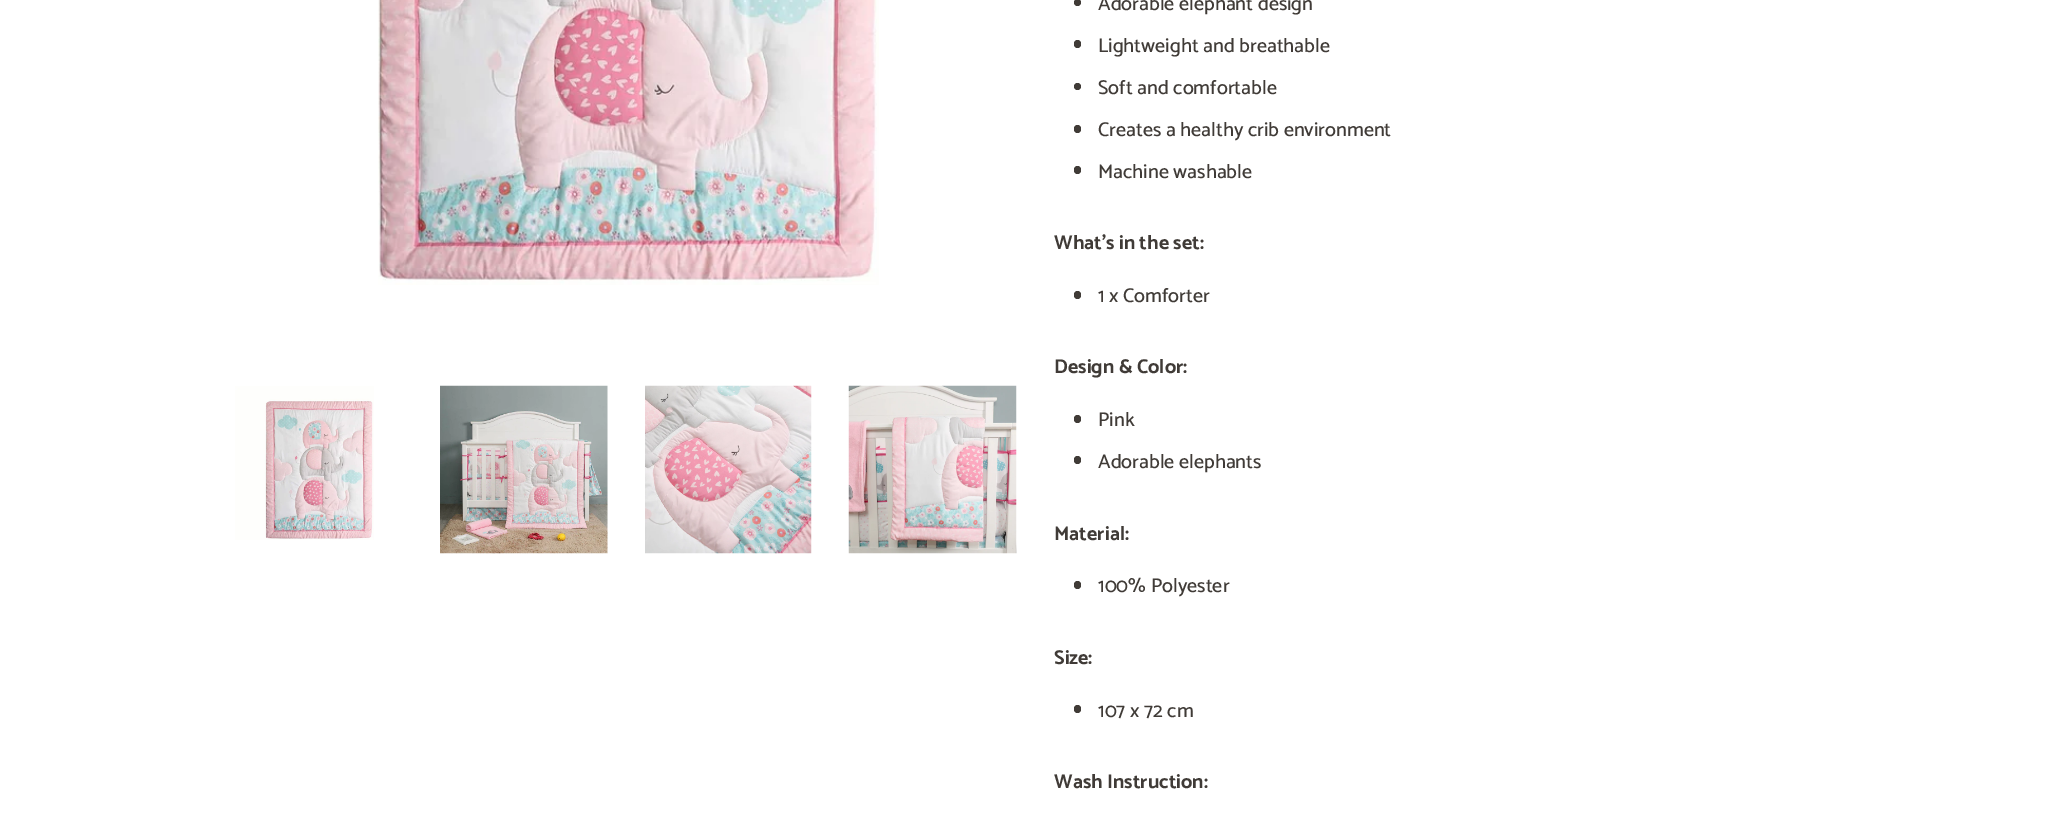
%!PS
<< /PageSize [2070 828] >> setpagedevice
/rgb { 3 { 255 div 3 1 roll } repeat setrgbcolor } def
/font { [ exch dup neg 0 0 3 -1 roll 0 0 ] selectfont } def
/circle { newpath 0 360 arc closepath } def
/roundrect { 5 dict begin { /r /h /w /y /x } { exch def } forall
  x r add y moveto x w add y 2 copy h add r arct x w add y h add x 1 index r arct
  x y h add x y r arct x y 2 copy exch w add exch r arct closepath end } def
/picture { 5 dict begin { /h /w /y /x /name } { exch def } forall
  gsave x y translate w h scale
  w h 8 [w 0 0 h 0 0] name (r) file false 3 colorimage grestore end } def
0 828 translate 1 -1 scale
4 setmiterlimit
255 255 255 rgb
0 0 2070 828 rectfill
(img/1.rgb) 378 0 501 285 picture
(img/2.rgb) 235 386 139 154 picture
(img/3.rgb) 440 385 168 169 picture
(img/4.rgb) 645 385 167 169 picture
(img/5.rgb) 848 385 169 169 picture
64 59 55 rgb
1077.5 2.5 3.5 circle fill
1074 40 7 8 3.5 roundrect fill
1077.5 86.5 3.5 circle fill
1074 125 7 8 3.5 roundrect fill
1074 166 7 8 3.5 roundrect fill
1074 291 7 8 3.5 roundrect fill
1074 415 7 8 3.5 roundrect fill
1074 456 7 8 3.5 roundrect fill
1074 581 7 8 3.5 roundrect fill
1074 705 7 8 3.5 roundrect fill
/Catamaran-Medium 20 font
[
  [(Adorable elephant design) 1098 10]
  [(Lightweight and breathable) 1098 52]
  [(Soft and comfortable) 1098 94]
  [(Creates a healthy crib environment) 1098 136]
  [(Machine washable) 1098 178]
] { aload pop moveto show } forall
/Catamaran-Bold 20 font
1054 249 moveto (What's in the set:) show
/Catamaran-Medium 20 font
1098 302 moveto (1 x Comforter) show
/Catamaran-Bold 20 font
1054 373 moveto (Design & Color:) show
/Catamaran-Medium 20 font
1098 426 moveto (Pink) show
1098 468 moveto (Adorable elephants) show
/Catamaran-Bold 20 font
1054 540 moveto (Material:) show
/Catamaran-Medium 20 font
1098 592 moveto (100% Polyester) show
/Catamaran-Bold 20 font
1054 664 moveto (Size:) show
/Catamaran-Medium 20 font
1098 717 moveto (107 x 72 cm) show
/Catamaran-Bold 20 font
1054 788 moveto (Wash Instruction:) show
showpage
